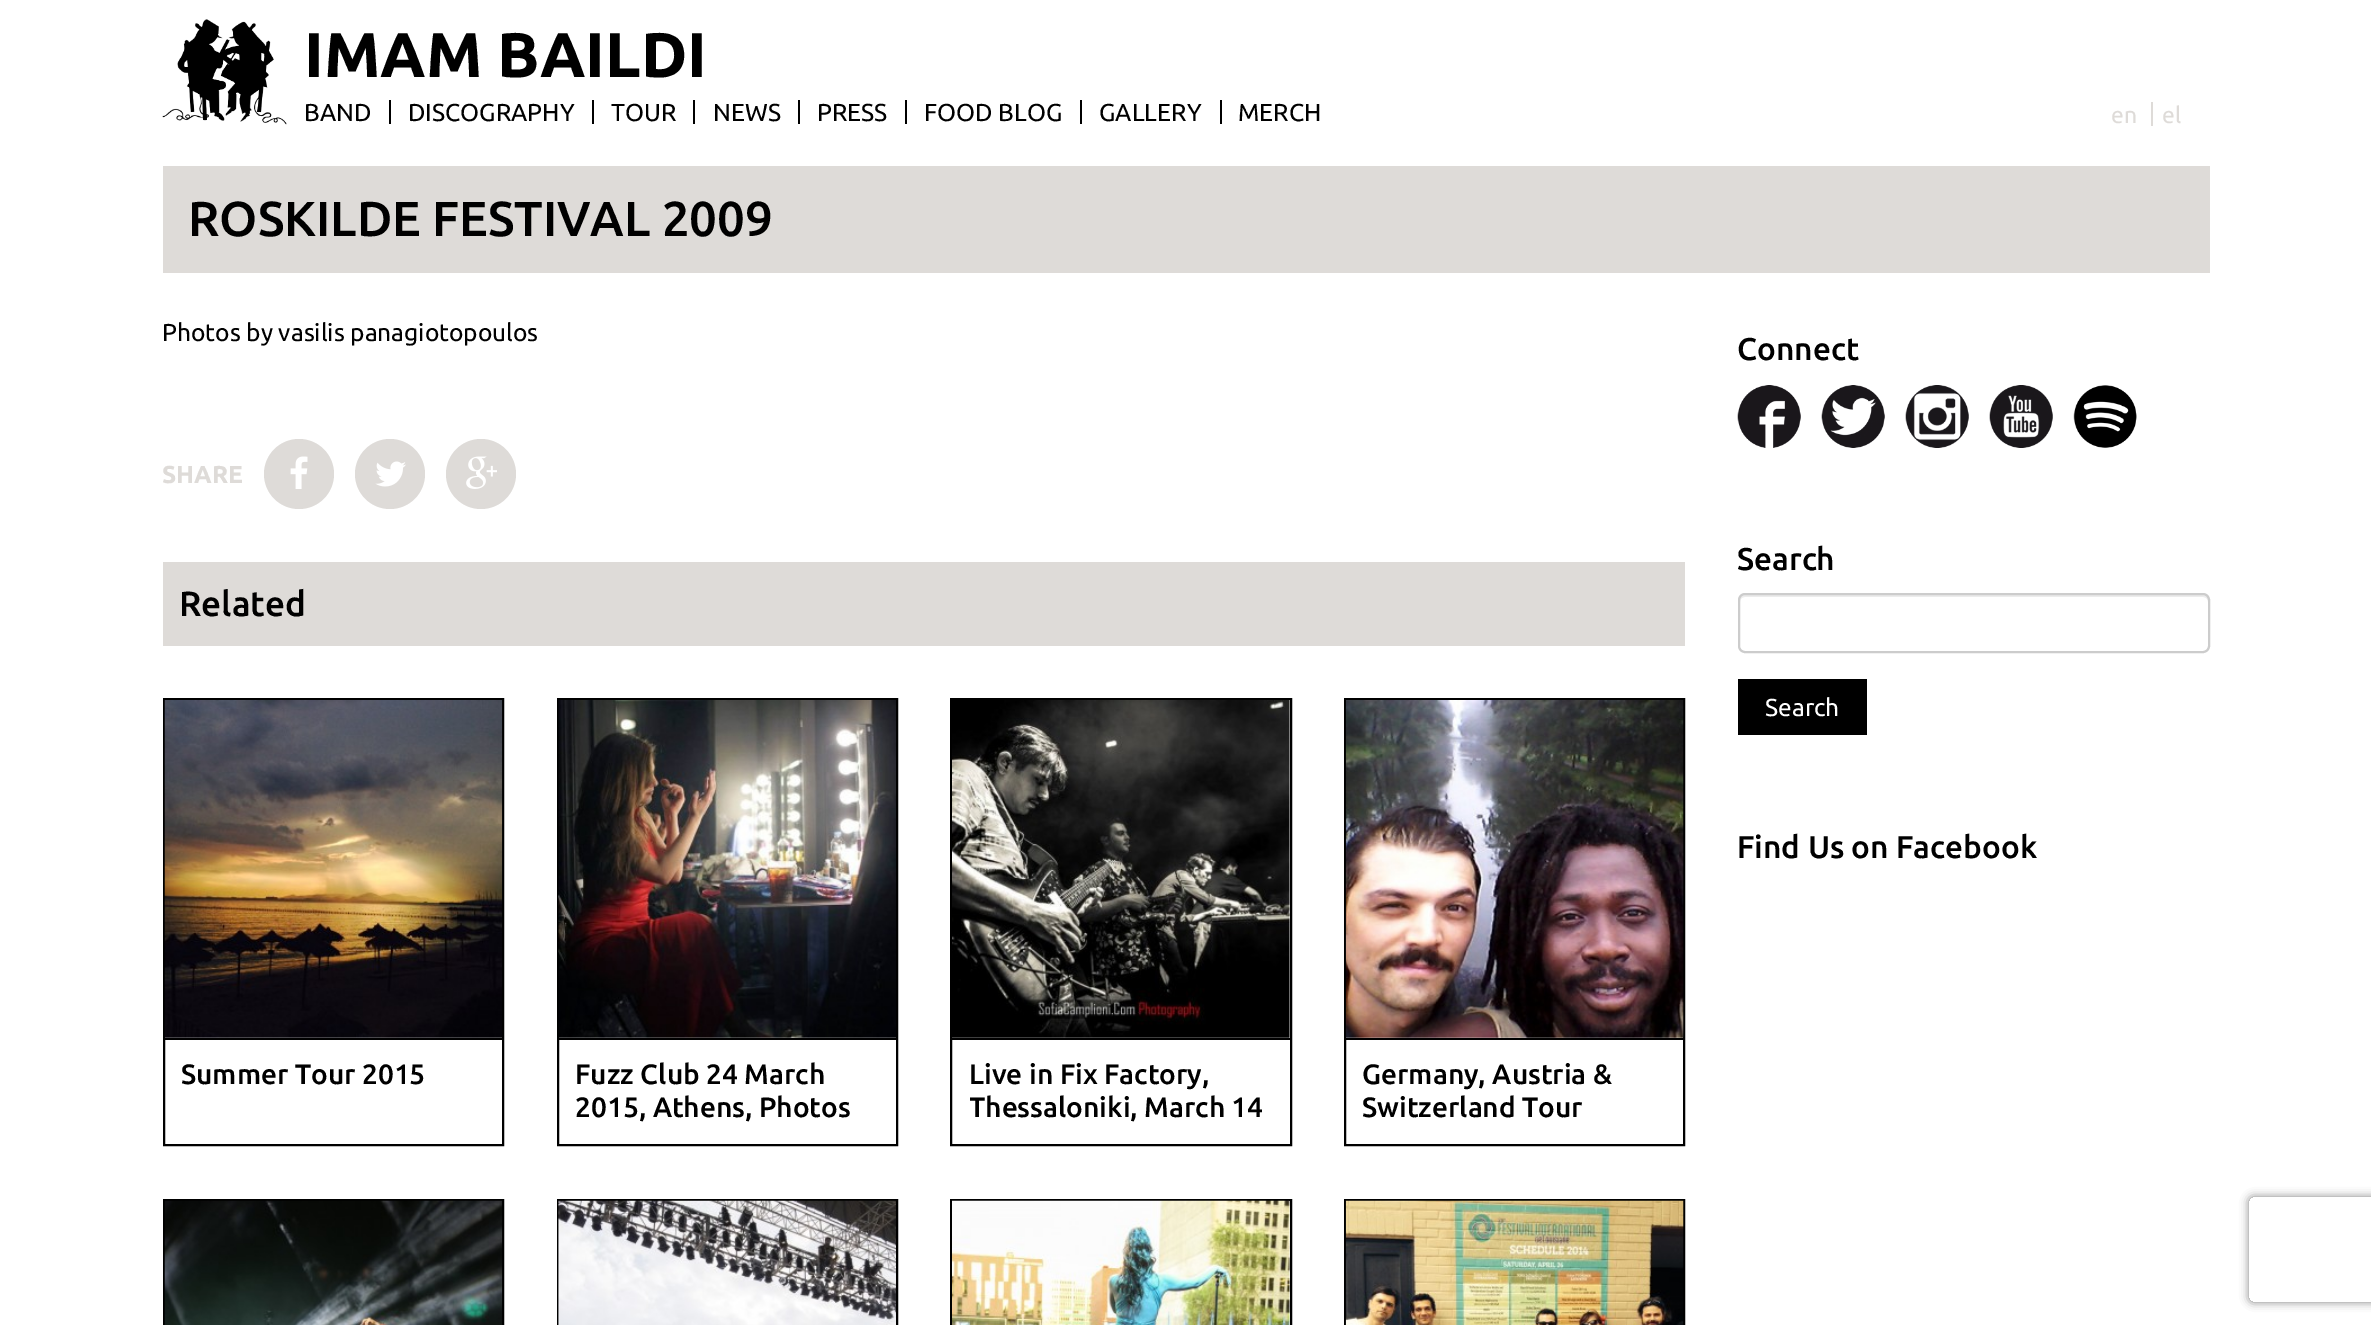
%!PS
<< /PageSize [2371 1325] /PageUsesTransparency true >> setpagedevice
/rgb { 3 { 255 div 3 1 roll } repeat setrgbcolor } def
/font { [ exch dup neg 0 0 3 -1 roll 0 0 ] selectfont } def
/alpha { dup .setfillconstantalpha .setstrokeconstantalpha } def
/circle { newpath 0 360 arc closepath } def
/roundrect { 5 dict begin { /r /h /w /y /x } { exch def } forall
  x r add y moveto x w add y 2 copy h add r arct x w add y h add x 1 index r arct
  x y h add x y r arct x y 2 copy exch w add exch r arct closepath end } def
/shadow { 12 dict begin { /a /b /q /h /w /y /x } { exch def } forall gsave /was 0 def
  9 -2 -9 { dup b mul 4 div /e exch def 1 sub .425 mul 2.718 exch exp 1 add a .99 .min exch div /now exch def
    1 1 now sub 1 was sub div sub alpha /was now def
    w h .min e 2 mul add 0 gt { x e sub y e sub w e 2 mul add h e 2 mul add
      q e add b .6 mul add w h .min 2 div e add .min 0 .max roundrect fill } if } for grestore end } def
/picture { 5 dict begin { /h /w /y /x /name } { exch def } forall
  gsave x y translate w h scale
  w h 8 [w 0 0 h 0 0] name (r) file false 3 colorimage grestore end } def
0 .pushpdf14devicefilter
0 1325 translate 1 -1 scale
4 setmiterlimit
255 255 255 rgb
0 0 2371 1325 rectfill
(img/1.rgb) 162 19 125 106 picture
[
  [389 100 2 24 0 0 0]
  [592 100 2 24 0 0 0]
  [693 100 2 24 0 0 0]
  [798 100 2 24 0 0 0]
  [905 100 2 24 0 0 0]
  [1080 100 2 24 0 0 0]
  [1220 100 2 24 0 0 0]
  [2151 102 2 24 222 219 216]
  [163 166 2047 107 222 219 216]
] { aload pop rgb rectfill } forall
299 474 35 circle fill
(img/2.rgb) 290 456 18 33 picture
390 474 35 circle fill
(img/3.rgb) 375 461 31 26 picture
481 474 35 circle fill
(img/4.rgb) 466 456 31 33 picture
163 562 1522 84 rectfill
0 0 0 rgb
2 setlinewidth
164 699 339 446 rectstroke
(img/5.rgb) 164 700 339 338 picture
165 1038 337 2 rectfill
558 699 339 446 rectstroke
(img/6.rgb) 558 700 338 338 picture
558 1038 338 2 rectfill
951 699 340 446 rectstroke
(img/7.rgb) 952 700 338 338 picture
952 1038 338 2 rectfill
1345 699 339 446 rectstroke
(img/8.rgb) 1345 700 339 338 picture
1346 1038 338 2 rectfill
164 1200 339 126 rectstroke
(img/9.rgb) 164 1200 339 125 picture
558 1200 339 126 rectstroke
(img/10.rgb) 558 1200 338 125 picture
951 1200 340 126 rectstroke
(img/11.rgb) 952 1200 338 125 picture
1345 1200 339 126 rectstroke
(img/12.rgb) 1345 1200 339 125 picture
(img/13.rgb) 1737 385 64 63 picture
(img/14.rgb) 1821 385 64 63 picture
(img/15.rgb) 1905 385 64 63 picture
(img/16.rgb) 1989 385 64 63 picture
(img/17.rgb) 2073 385 64 63 picture
236 236 236 rgb
1745 597 moveto 2203 597 lineto 2206 597 2208 599 2208 602 curveto 2208 649 lineto 2209 648 2209 647 2209 646 curveto 2209 600 lineto 2209 597 2207 595 2204 595 curveto 1745 595 lineto 1742 595 1740 597 1740 600 curveto 1740 602 lineto 1740 599 1742 597 1745 597 curveto closepath fill
204 204 204 rgb
1739 594 470 58 6 roundrect stroke
0 0 0 rgb
1738 679 129 56 rectfill
gsave
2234 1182 moveto 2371 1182 lineto 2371 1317 lineto 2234 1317 lineto closepath 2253 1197 moveto 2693 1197 lineto 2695 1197 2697 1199 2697 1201 curveto 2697 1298 lineto 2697 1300 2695 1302 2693 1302 curveto 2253 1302 lineto 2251 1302 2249 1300 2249 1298 curveto 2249 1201 lineto 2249 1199 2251 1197 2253 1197 curveto closepath eoclip newpath
128 128 128 rgb
2249 1197 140 105 4 4.5 1 shadow
grestore
/Ubuntu-Bold 63 font
304 77 moveto (IMAM BAILDI) show
/Ubuntu-Regular 24.5 font
[
  [(BAND) 304 121]
  [(DISCOGRAPHY) 408 121]
  [(TOUR) 611 121]
  [(NEWS) 713 121]
  [(PRESS) 817 121]
  [(FOOD BLOG) 924 121]
  [(GALLERY) 1099 121]
  [(MERCH) 1238 121]
] { aload pop moveto show } forall
/Ubuntu-Regular 23 font
222 219 216 rgb
2111 123 moveto (en) show
2162 123 moveto (el) show
/Ubuntu-Medium 49 font
0 0 0 rgb
188 236 moveto (ROSKILDE FESTIVAL 2009) show
/Ubuntu-Regular 24.5 font
162 341 moveto (Photos by vasilis panagiotopoulos) show
/Ubuntu-Bold 24.5 font
222 219 216 rgb
162 483 moveto (SHARE) show
/Ubuntu-Medium 35 font
0 0 0 rgb
179 616 moveto (Related) show
/Ubuntu-Medium 28 font
[
  [(Summer Tour 2015) 181 1084]
  [(Fuzz Club 24 March) 575 1084]
  [(2015, Athens, Photos) 575 1117]
  [(Live in Fix Factory,) 969 1084]
] { aload pop moveto show } forall
gsave
970 1057 302 70 rectclip
969 1117 moveto (Thessaloniki, March 14) show
grestore
1362 1084 moveto (Germany, Austria &) show
1362 1117 moveto (Switzerland Tour) show
/Ubuntu-Medium 31.5 font
1737 360 moveto (Connect) show
1737 570 moveto (Search) show
/Ubuntu-Regular 24.5 font
255 255 255 rgb
1765 716 moveto (Search) show
/Ubuntu-Medium 31.5 font
0 0 0 rgb
1737 858 moveto (Find Us on Facebook) show
.poppdf14devicefilter showpage
